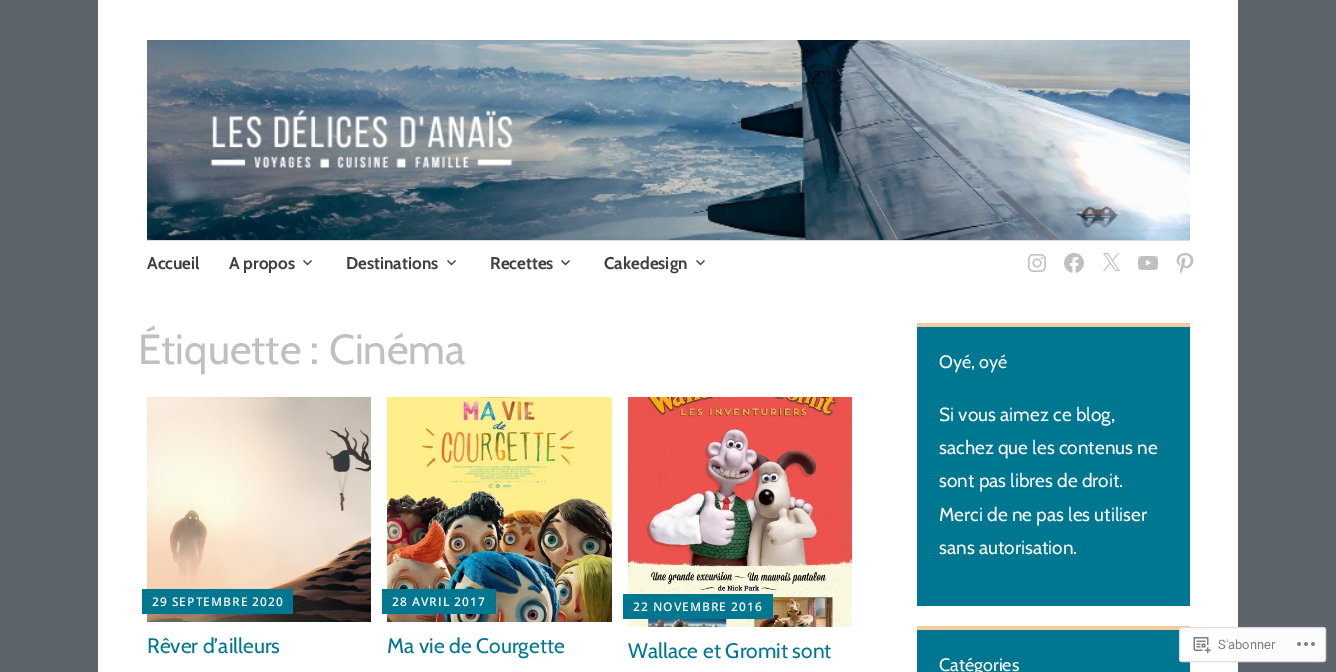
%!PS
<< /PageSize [1336 672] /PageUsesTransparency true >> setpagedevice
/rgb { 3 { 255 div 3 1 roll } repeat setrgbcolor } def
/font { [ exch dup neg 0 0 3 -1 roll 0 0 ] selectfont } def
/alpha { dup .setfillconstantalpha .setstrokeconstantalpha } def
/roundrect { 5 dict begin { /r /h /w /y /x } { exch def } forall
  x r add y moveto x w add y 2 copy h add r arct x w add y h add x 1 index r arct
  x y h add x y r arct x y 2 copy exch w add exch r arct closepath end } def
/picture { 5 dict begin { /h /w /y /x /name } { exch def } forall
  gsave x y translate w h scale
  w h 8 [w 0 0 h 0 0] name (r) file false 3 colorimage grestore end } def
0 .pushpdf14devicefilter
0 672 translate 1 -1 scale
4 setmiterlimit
93 100 108 rgb
0 0 1336 672 rectfill
255 255 255 rgb
98 0 1140 672 rectfill
(img/1.rgb) 147 40 1043 200 picture
217 217 217 rgb
147 240 1043 1 rectfill
(img/2.rgb) 303 260 9 6 picture
(img/2.rgb) 447 260 9 6 picture
(img/2.rgb) 561 260 9 6 picture
(img/2.rgb) 696 260 9 6 picture
(img/3.rgb) 1028 254 18 18 picture
(img/4.rgb) 1064 253 20 20 picture
(img/5.rgb) 1103 253 17 18 picture
(img/6.rgb) 1138 256 20 14 picture
(img/7.rgb) 1176 253 18 21 picture
(img/8.rgb) 147 397 224 225 picture
0 119 145 rgb
142 589 151 25 rectfill
(img/9.rgb) 387 397 225 225 picture
382 589 114 25 rectfill
(img/10.rgb) 628 397 224 230 picture
[
  [623 594 150 25 0 119 145]
  [917 327 273 279 0 119 145]
  [917 323 273 4 245 202 157]
  [917 630 273 42 0 119 145]
  [917 626 273 4 245 202 157]
] { aload pop rgb rectfill } forall
0.98 alpha
255 255 255 rgb
1179 627 147 35 3 roundrect fill
220 220 222 rgb
1179.5 627.5 146 34 2.5 roundrect stroke
1 alpha
(img/11.rgb) 1193 637 18 17 picture
(img/12.rgb) 1297 642 18 4 picture
/Cabin-Bold 17 font
64 64 64 rgb
[
  [(Accueil) 147 269]
  [(A propos) 229 269]
  [(Destinations) 346 269]
  [(Recettes) 490 269]
  [(Cakedesign) 604 269]
] { aload pop moveto show } forall
/Cabin-Regular 42 font
192 192 192 rgb
138 364 moveto (Étiquette : Cinéma) show
/OpenSans-SemiBold 12 font
255 255 255 rgb
152 606 moveto 1 0 (29 SEPTEMBRE 2020) ashow
/Cabin-Regular 21 font
0 119 145 rgb
147 653 moveto (Rêver d’ailleurs) show
/OpenSans-SemiBold 12 font
255 255 255 rgb
392 606 moveto 1 0 (28 AVRIL 2017) ashow
/Cabin-Regular 21 font
0 119 145 rgb
387 653 moveto (Ma vie de Courgette) show
/OpenSans-SemiBold 12 font
255 255 255 rgb
633 611 moveto 1 0 (22 NOVEMBRE 2016) ashow
/Cabin-Regular 21 font
0 119 145 rgb
628 658 moveto (Wallace et Gromit sont) show
/Cabin-Regular 18 font
255 255 255 rgb
939 368 moveto (Oyé, oyé) show
/Cabin-Regular 19 font
[
  [(Si vous aimez ce blog,) 939 421]
  [(sachez que les contenus ne) 939 454]
  [(sont pas libres de droit.) 939 487]
  [(Merci de ne pas les utiliser) 939 521]
  [(sans autorisation.) 939 554]
] { aload pop moveto show } forall
/Cabin-Regular 18 font
939 671 moveto (Catégories) show
/Roboto-Regular 13 font
123 127 132 rgb
1218 649 moveto (S'abonner) show
.poppdf14devicefilter showpage
